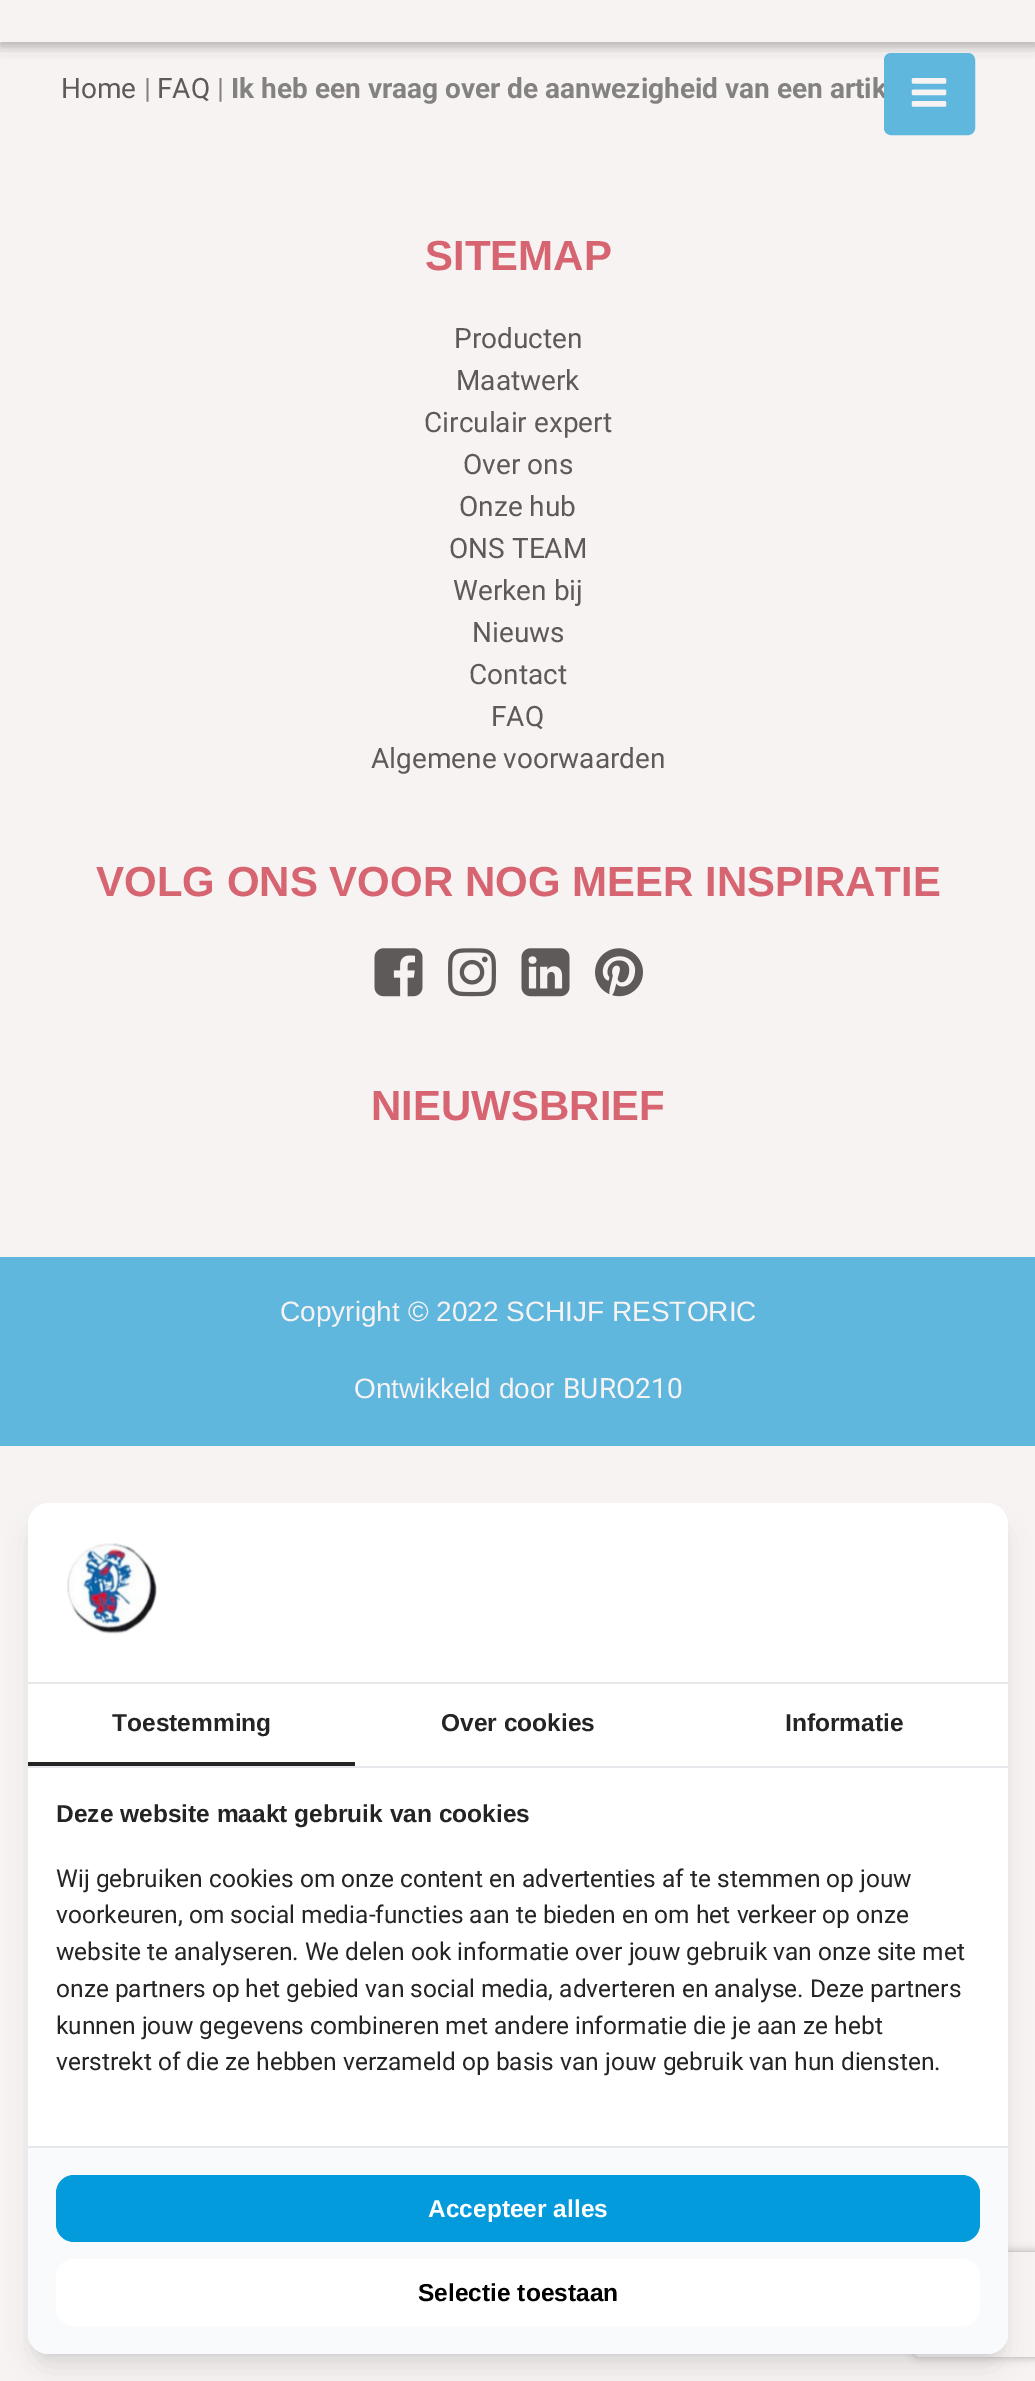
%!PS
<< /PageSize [1035 2381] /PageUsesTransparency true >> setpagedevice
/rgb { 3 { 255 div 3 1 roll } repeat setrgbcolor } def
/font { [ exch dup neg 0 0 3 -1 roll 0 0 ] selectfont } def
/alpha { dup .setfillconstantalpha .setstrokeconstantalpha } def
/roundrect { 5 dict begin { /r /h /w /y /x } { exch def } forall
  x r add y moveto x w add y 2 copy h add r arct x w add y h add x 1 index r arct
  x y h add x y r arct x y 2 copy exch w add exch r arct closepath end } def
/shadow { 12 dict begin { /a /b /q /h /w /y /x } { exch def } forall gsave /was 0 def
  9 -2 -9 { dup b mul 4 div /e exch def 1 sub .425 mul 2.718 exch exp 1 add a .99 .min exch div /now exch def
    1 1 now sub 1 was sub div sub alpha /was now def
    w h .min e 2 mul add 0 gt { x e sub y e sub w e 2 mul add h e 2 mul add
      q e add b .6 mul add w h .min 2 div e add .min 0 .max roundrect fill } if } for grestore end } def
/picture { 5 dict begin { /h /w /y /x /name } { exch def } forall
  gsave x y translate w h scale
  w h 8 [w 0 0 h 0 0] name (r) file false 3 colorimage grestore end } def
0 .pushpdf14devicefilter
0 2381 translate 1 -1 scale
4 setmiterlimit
247 243 243 rgb
0 0 1035 2381 rectfill
gsave
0 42 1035 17 rectclip
94 90 90 rgb
0 4 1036 42 0 9 0.25 shadow
grestore
gsave
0 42 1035 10 rectclip
94 90 90 rgb
0 4 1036 42 0 4.5 0.25 shadow
grestore
(img/2.rgb) 374 948 49 49 picture
(img/3.rgb) 448 948 48 49 picture
(img/4.rgb) 521 948 49 49 picture
(img/5.rgb) 595 948 48 49 picture
96 183 222 rgb
0 1257 1035 189 rectfill
0 0 0 rgb
35 1517 966 837 14 5 0.1 shadow
33 1526 970 840 16 13 0.1 shadow
gsave
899 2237 moveto 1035 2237 lineto 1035 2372 lineto 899 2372 lineto closepath 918 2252 moveto 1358 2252 lineto 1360 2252 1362 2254 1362 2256 curveto 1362 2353 lineto 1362 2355 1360 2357 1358 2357 curveto 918 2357 lineto 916 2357 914 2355 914 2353 curveto 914 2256 lineto 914 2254 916 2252 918 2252 curveto closepath eoclip newpath
171 167 167 rgb
914 2252 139 105 4 4.5 1 shadow
grestore
255 255 255 rgb
28 1503 980 851 21 roundrect fill
229 231 235 rgb
28 1682 980 2 rectfill
(img/6.rgb) 67 1543 90 91 picture
28 1766 980 2 rectfill
36 36 36 rgb
28 1762 327 4 rectfill
gsave
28 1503 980 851 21 roundrect clip newpath
255 255 255 rgb
14 2097 1008 236 0 17.5 1 shadow
grestore
249 250 251 rgb
28 2146 moveto 1008 2146 lineto 1008 2333 lineto 1008 2344.5 998.5 2354 987 2354 curveto 49 2354 lineto 37.5 2354 28 2344.5 28 2333 curveto closepath fill
229 231 235 rgb
28 2146 980 2 rectfill
3 155 220 rgb
56 2175 924 67 18 roundrect fill
255 255 255 rgb
56 2259 924 67 18 roundrect fill
/Roboto-Regular 28 font
94 90 90 rgb
61 98 moveto (Home) show
132 129 129 rgb
144 98 moveto (|) show
94 90 90 rgb
157 98 moveto (FAQ) show
132 129 129 rgb
217 98 moveto (|) show
/Roboto-Bold 28 font
231 98 moveto (Ik heb een vraag over de aanwezigheid van een artik) show
96 183 222 rgb
886 55 87 78 5 roundrect gsave fill grestore
4 setlinewidth
stroke
(img/1.rgb) 911 78 36 29 picture
/LiberationSans-Bold 42 font
214 101 113 rgb
425 270 moveto (SITEMAP) show
/Roboto-Regular 28 font
94 90 90 rgb
[
  [(Producten) 454 348]
  [(Maatwerk) 456 390]
  [(Circulair expert) 424 432]
  [(Over ons) 463 474]
  [(Onze hub) 459 516]
  [(ONS TEAM) 449 558]
  [(Werken bij) 453 600]
  [(Nieuws) 472 642]
  [(Contact) 469 684]
  [(FAQ) 491 726]
  [(Algemene voorwaarden) 371 768]
] { aload pop moveto show } forall
/LiberationSans-Bold 42 font
214 101 113 rgb
96 896 moveto (VOLG ONS VOOR NOG MEER INSPIRATIE) show
371 1120 moveto (NIEUWSBRIEF) show
/LiberationSans-Regular 28 font
247 243 243 rgb
280 1321 moveto (Copyright © 2022 SCHIJF RESTORIC) show
354 1398 moveto (Ontwikkeld door) show
/Roboto-Regular 28 font
563 1398 moveto (BURO210) show
/LiberationSans-Bold 24.5 font
36 36 36 rgb
[
  [(Toestemming) 112 1731]
  [(Over cookies) 441 1731]
  [(Informatie) 785 1731]
  [(Deze website maakt gebruik van cookies) 56 1822]
] { aload pop moveto show } forall
/Roboto-Regular 24.5 font
[
  [(Wij gebruiken cookies om onze content en advertenties af te stemmen op jouw) 56 1887]
  [(voorkeuren, om social media-functies aan te bieden en om het verkeer op onze) 56 1923]
  [(website te analyseren. We delen ook informatie over jouw gebruik van onze site met) 56 1960]
  [(onze partners op het gebied van social media, adverteren en analyse. Deze partners) 56 1997]
  [(kunnen jouw gegevens combineren met andere informatie die je aan ze hebt) 56 2034]
  [(verstrekt of die ze hebben verzameld op basis van jouw gebruik van hun diensten.) 56 2070]
] { aload pop moveto show } forall
/LiberationSans-Bold 24.5 font
255 255 255 rgb
428 2217 moveto (Accepteer alles) show
0 0 0 rgb
418 2301 moveto (Selectie toestaan) show
.poppdf14devicefilter showpage
